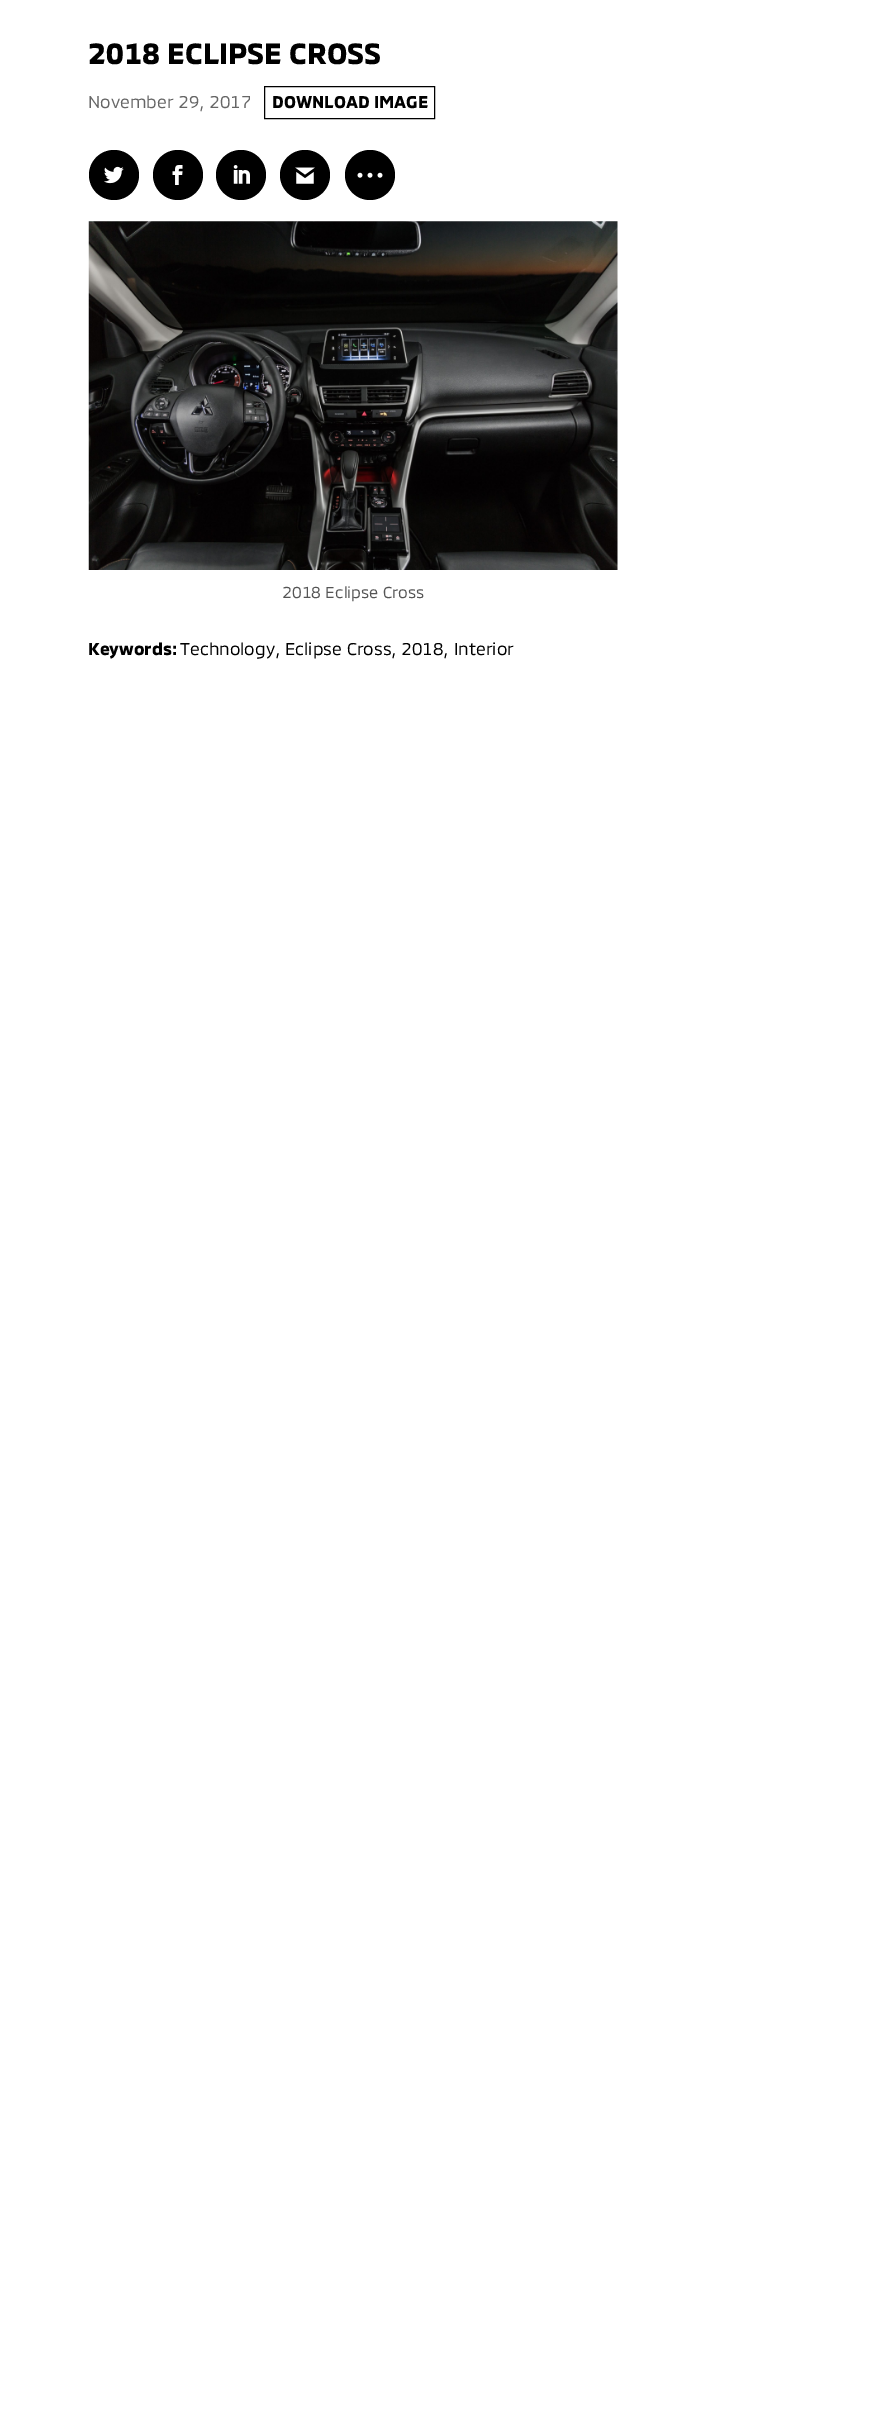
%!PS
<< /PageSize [882 2425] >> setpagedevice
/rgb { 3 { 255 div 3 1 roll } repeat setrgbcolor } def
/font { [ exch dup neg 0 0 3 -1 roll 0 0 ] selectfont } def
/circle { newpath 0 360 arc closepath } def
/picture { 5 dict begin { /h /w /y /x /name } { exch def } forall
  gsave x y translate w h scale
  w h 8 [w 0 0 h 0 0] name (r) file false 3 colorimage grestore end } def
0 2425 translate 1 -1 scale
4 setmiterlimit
255 255 255 rgb
0 0 882 2425 rectfill
0 0 0 rgb
264.5 86.5 170 32 rectstroke
114 175 25 circle fill
(img/1.rgb) 104 166 20 18 picture
178 175 25 circle fill
(img/2.rgb) 172 165 11 20 picture
241 175 25 circle fill
(img/3.rgb) 233 165 17 19 picture
305 175 25 circle fill
(img/4.rgb) 295 167 20 17 picture
370 175 25 circle fill
(img/5.rgb) 357 172 26 6 picture
(img/6.rgb) 88 221 530 349 picture
/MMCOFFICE-Bold 30 font
88 64 moveto (2018 ECLIPSE CROSS) show
/MMCOFFICE-Regular 17.5 font
102 102 102 rgb
88 108 moveto (November 29, 2017) show
/MMCOFFICE-Bold 17.5 font
0 0 0 rgb
272 108 moveto (DOWNLOAD IMAGE) show
/MMCOFFICE-Regular 16.25 font
85 85 85 rgb
282 598 moveto (2018 Eclipse Cross) show
/MMCOFFICE-Bold 17.5 font
0 0 0 rgb
88 655 moveto (Keywords:) show
/MMCOFFICE-Regular 17.5 font
180 655 moveto (Technology, Eclipse Cross, 2018, Interior) show
showpage
